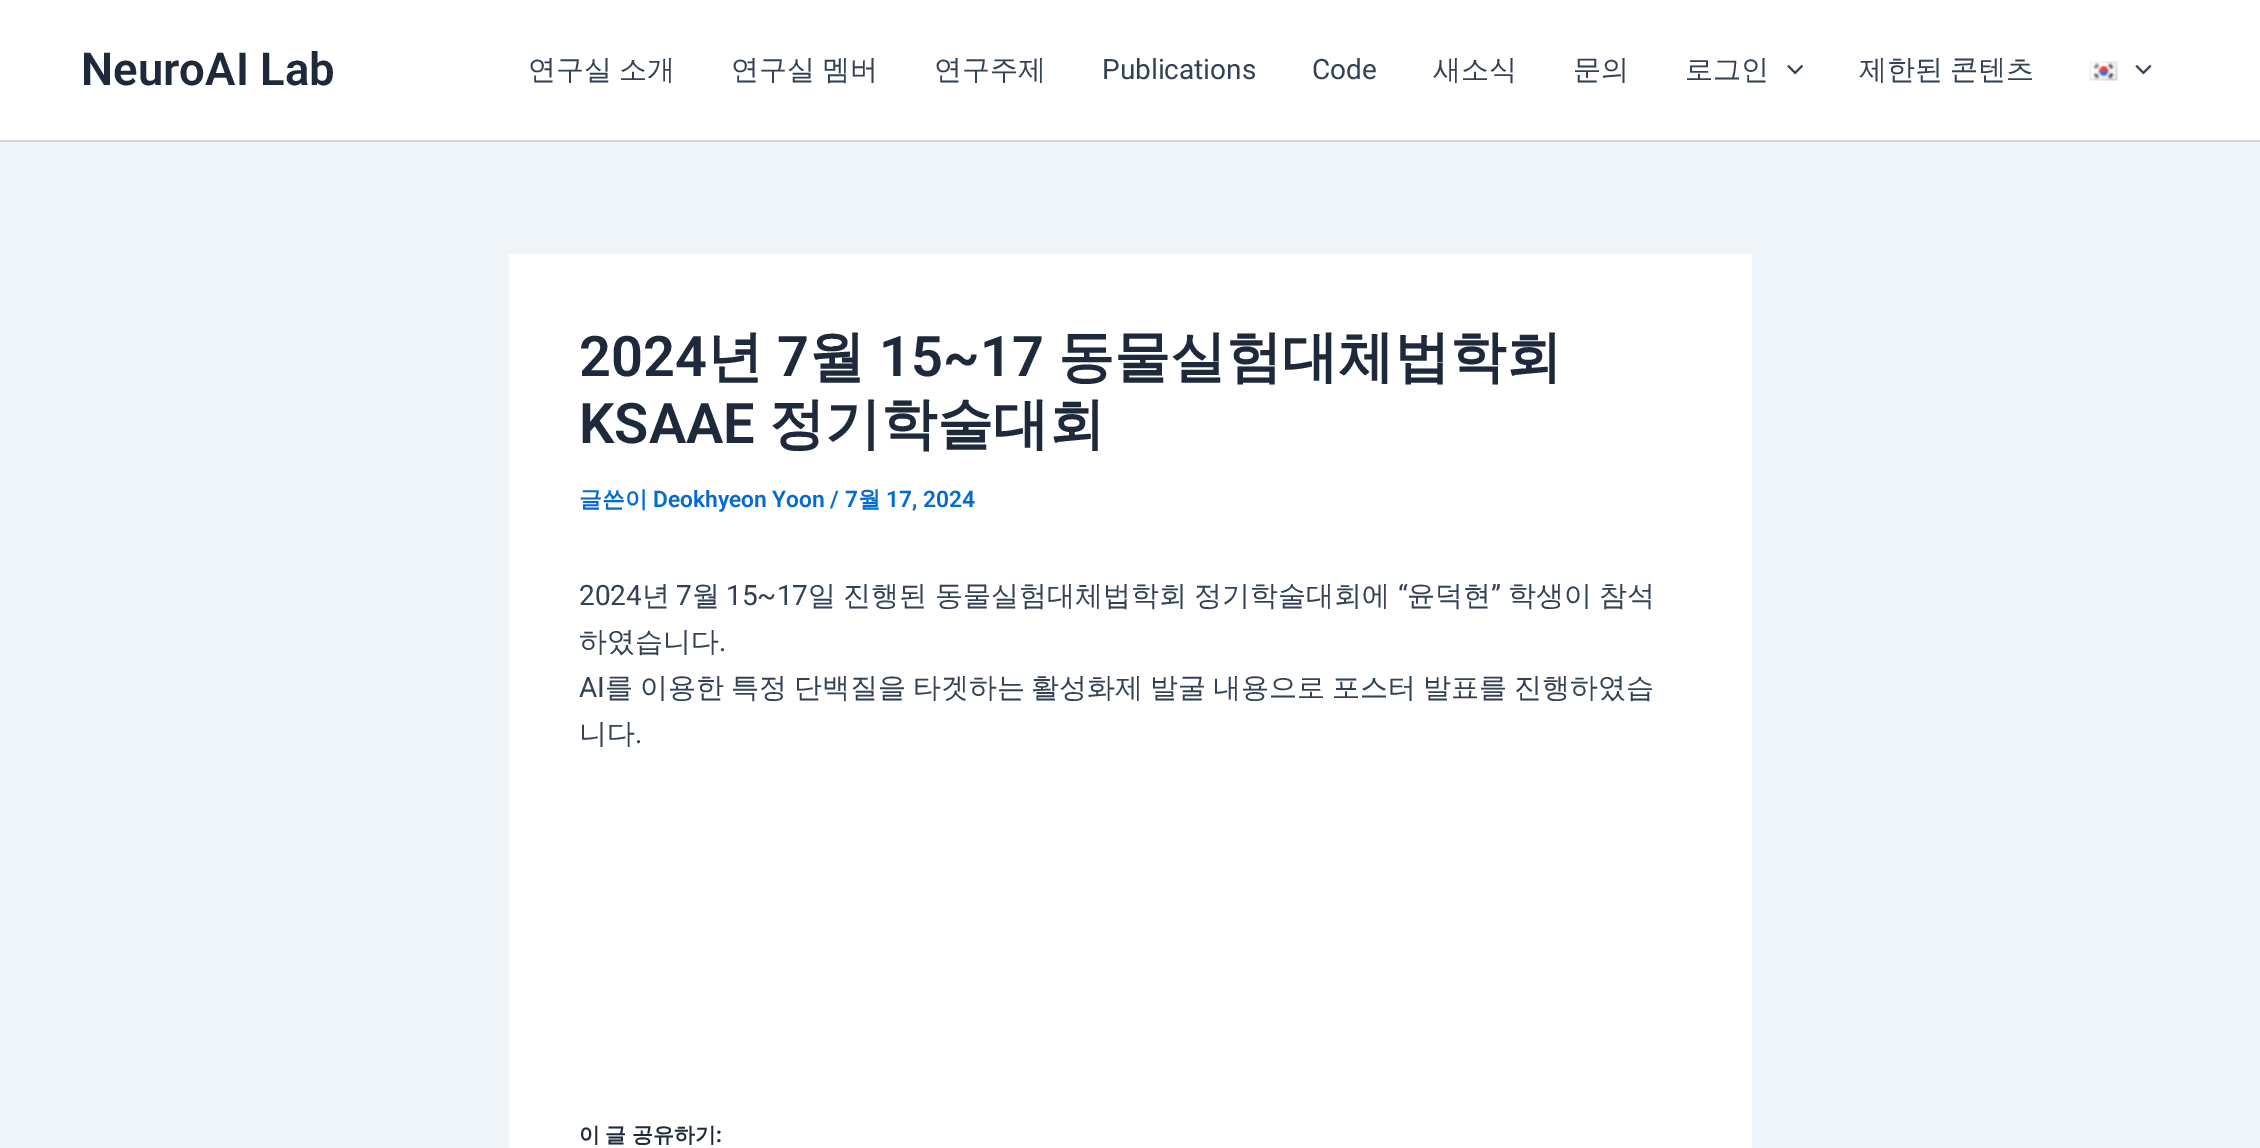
%!PS
<< /PageSize [2260 1148] >> setpagedevice
/rgb { 3 { 255 div 3 1 roll } repeat setrgbcolor } def
/font { [ exch dup neg 0 0 3 -1 roll 0 0 ] selectfont } def
/picture { 5 dict begin { /h /w /y /x /name } { exch def } forall
  gsave x y translate w h scale
  w h 8 [w 0 0 h 0 0] name (r) file false 3 colorimage grestore end } def
0 1148 translate 1 -1 scale
4 setmiterlimit
240 245 250 rgb
0 0 2260 1148 rectfill
255 255 255 rgb
0 0 2260 140 rectfill
209 213 219 rgb
0 140 2260 2 rectfill
(img/1.rgb) 1787 64 16 11 picture
(img/2.rgb) 2089 61 29 20 picture
(img/3.rgb) 2135 64 17 11 picture
255 255 255 rgb
509 254 1243 894 rectfill
/Roboto-SemiBold 45.5 font
30 41 59 rgb
81 85 moveto (NeuroAI Lab) show
/WenQuanYiZenHei-Medium 28 font
51 65 85 rgb
528 79 moveto -1.5 0 32 (연구실 소개) widthshow
731 79 moveto -1.5 0 32 (연구실 멤버) widthshow
934 79 moveto (연구주제) show
/Roboto-Regular 28 font
1102 79 moveto (Publications) show
1312 79 moveto (Code) show
/WenQuanYiZenHei-Medium 28 font
[
  [(새소식) 1433 79]
  [(문의) 1573 79]
  [(로그인) 1685 79]
] { aload pop moveto show } forall
1859 79 moveto -1.5 0 32 (제한된 콘텐츠) widthshow
/Roboto-SemiBold 56 font
30 41 59 rgb
579 376 moveto (2024) show
/WenQuanYiZenHei-Bold 56 font
707 376 moveto (년) show
/Roboto-SemiBold 56 font
777 376 moveto (7) show
/WenQuanYiZenHei-Bold 56 font
809 376 moveto (월) show
/Roboto-SemiBold 56 font
879 376 moveto (15~17) show
/WenQuanYiZenHei-Bold 56 font
1058 376 moveto (동물실험대체법학회) show
/Roboto-SemiBold 56 font
579 443 moveto (KSAAE) show
/WenQuanYiZenHei-Bold 56 font
769 443 moveto (정기학술대회) show
/WenQuanYiZenHei-Bold 22.75 font
4 107 210 rgb
579 507 moveto (글쓴이) show
/Roboto-SemiBold 22.75 font
653 507 moveto (Deokhyeon Yoon / 7) show
/WenQuanYiZenHei-Bold 22.75 font
858 507 moveto (월) show
/Roboto-SemiBold 22.75 font
886 507 moveto (17, 2024) show
/Roboto-Regular 28 font
51 65 85 rgb
579 605 moveto (2024) show
/WenQuanYiZenHei-Medium 28 font
642 605 moveto (년) show
/Roboto-Regular 28 font
676 605 moveto (7) show
/WenQuanYiZenHei-Medium 28 font
692 605 moveto (월) show
/Roboto-Regular 28 font
726 605 moveto (15~17) show
/WenQuanYiZenHei-Medium 28 font
808 605 moveto -1 0 32 (일 진행된 동물실험대체법학회 정기학술대회에) widthshow
/Roboto-Regular 28 font
1398 605 moveto (“) show
/WenQuanYiZenHei-Medium 28 font
1407 605 moveto (윤덕현) show
/Roboto-Regular 28 font
1491 605 moveto (”) show
/WenQuanYiZenHei-Medium 28 font
1508 605 moveto -1 0 32 (학생이 참석) widthshow
579 651 moveto (하였습니다) show
/Roboto-Regular 28 font
719 651 moveto (.) show
579 697 moveto (AI) show
/WenQuanYiZenHei-Medium 28 font
605 697 moveto -1.5 0 32 (를 이용한 특정 단백질을 타겟하는 활성화제 발굴 내용으로 포스터 발표를 진행하였습) widthshow
579 743 moveto (니다) show
/Roboto-Regular 28 font
635 743 moveto (.) show
/WenQuanYiZenHei-Bold 21 font
30 41 59 rgb
579 1142 moveto -1 0 32 (이 글 공유하기) widthshow
/Roboto-Bold 21 font
716 1142 moveto (:) show
showpage
